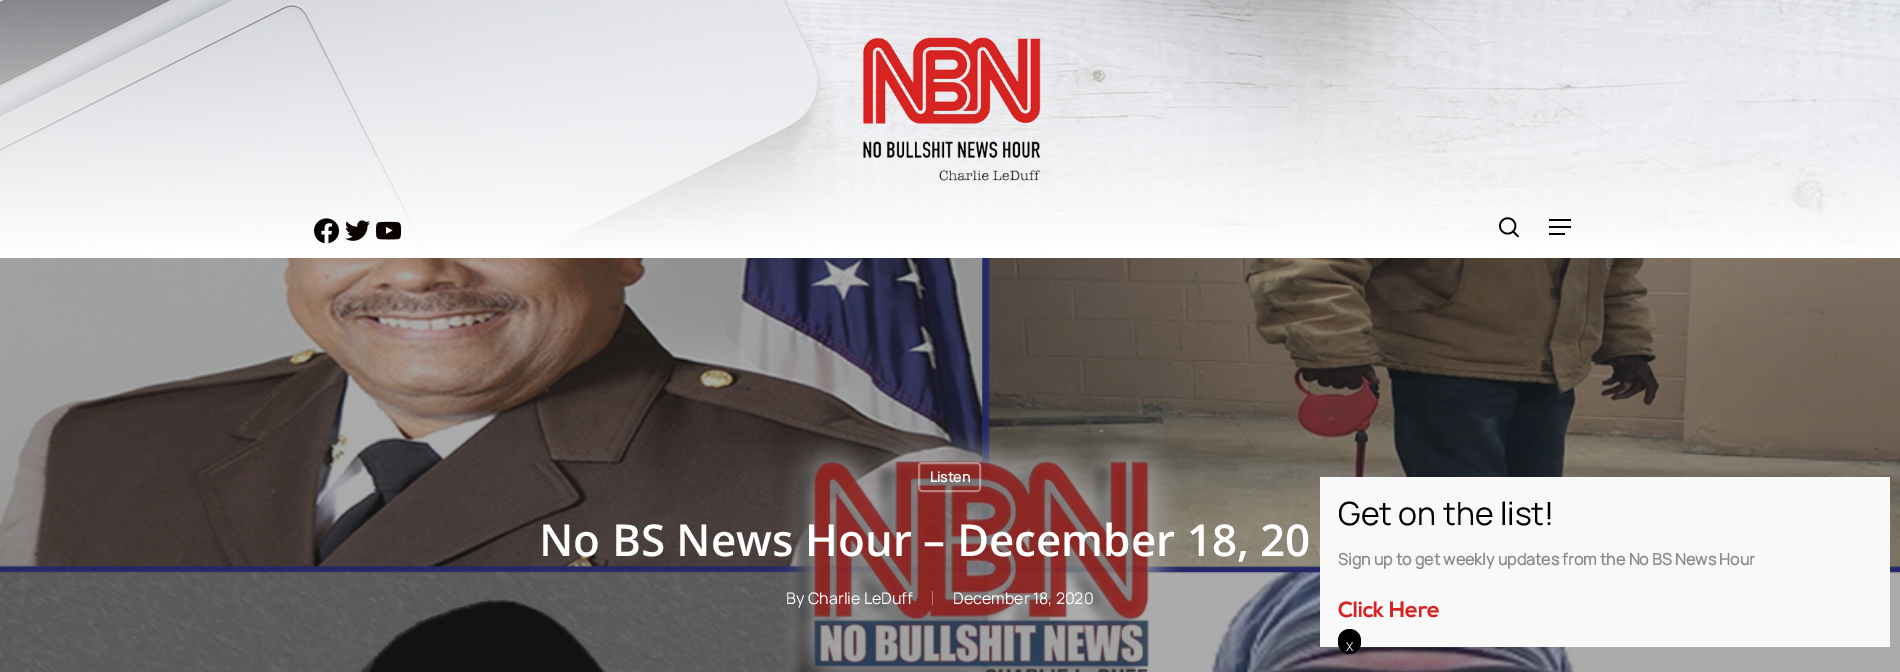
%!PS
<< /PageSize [1900 672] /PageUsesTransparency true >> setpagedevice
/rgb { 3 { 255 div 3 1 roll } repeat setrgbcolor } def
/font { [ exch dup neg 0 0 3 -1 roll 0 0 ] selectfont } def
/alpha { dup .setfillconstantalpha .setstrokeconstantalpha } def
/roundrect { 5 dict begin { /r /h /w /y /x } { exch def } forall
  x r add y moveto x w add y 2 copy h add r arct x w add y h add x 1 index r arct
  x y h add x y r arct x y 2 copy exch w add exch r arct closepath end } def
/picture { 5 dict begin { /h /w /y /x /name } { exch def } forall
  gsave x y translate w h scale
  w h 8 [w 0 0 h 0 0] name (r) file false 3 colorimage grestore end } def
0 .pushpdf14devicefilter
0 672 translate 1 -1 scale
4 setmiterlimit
255 255 255 rgb
0 0 1900 672 rectfill
(img/1.rgb) 0 0 1900 249 picture
(img/2.rgb) 862 37 179 144 picture
(img/3.rgb) 314 218 25 26 picture
(img/4.rgb) 345 220 25 21 picture
(img/5.rgb) 376 221 26 19 picture
(img/6.rgb) 1499 217 20 21 picture
[
  [1549 219 22 2 0 0 0]
  [1549 233 16 2 0 0 0]
  [1549 226 22 2 0 0 0]
] { aload pop rgb rectfill } forall
(img/7.rgb) 0 258 1900 414 picture
0.4 alpha
255 255 255 rgb
2 setlinewidth
919 463 61 28 3 roundrect stroke
1 alpha
186 125 123 rgb
932 591 1 14 rectfill
249 249 249 rgb
1320 477 570 170 rectfill
0 0 0 rgb
1338 629 23 25 11.5 roundrect fill
/Manrope-Bold 14 font
255 255 255 rgb
930 482 moveto (Listen) show
/OpenSans-SemiBold 44 font
539 556 moveto (No BS News Hour – December 18, 20) show
/Manrope-ExtraLight 16 font
[
  [(By) 786 604]
  [(Charlie LeDuff) 808 604]
  [(December 18, 2020) 953 604]
] { aload pop moveto show } forall
/Manrope-ExtraLight 32 font
0 0 0 rgb
1338 525 moveto (Get on the list!) show
/Manrope-Bold 16 font
140 140 140 rgb
1338 565 moveto (Sign up to get weekly updates from the No BS News Hour) show
/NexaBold-Bold 22 font
215 36 34 rgb
1338 617 moveto (Click Here) show
/Manrope-ExtraLight 12 font
255 255 255 rgb
1346 651 moveto (X) show
.poppdf14devicefilter showpage
